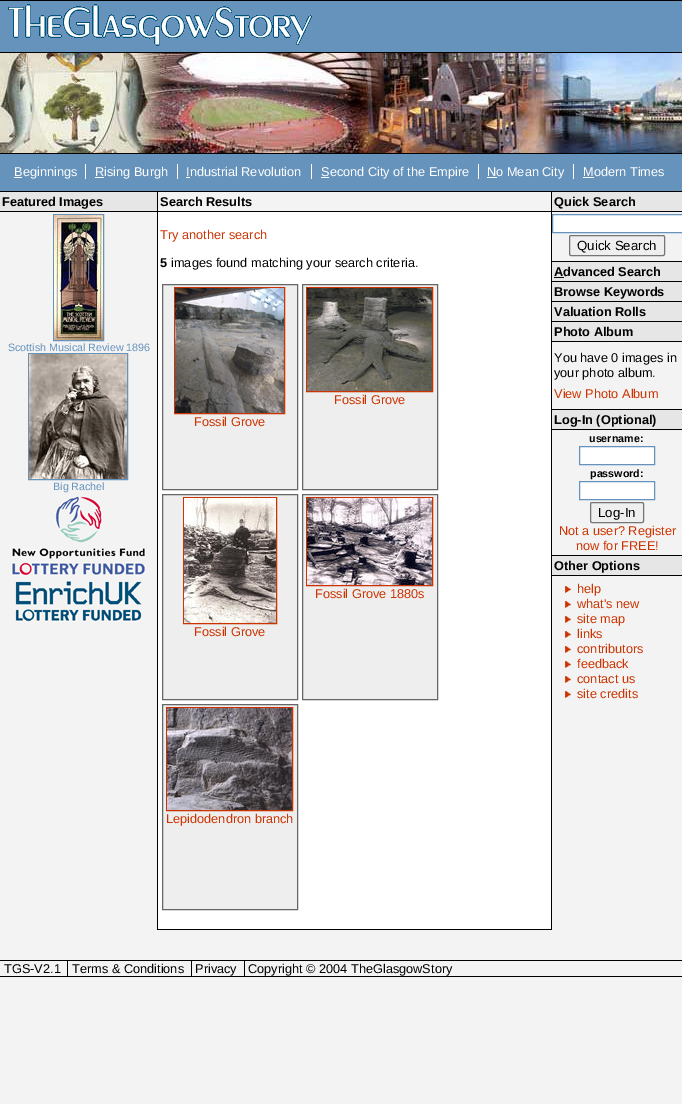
%!PS
<< /PageSize [682 1104] >> setpagedevice
/rgb { 3 { 255 div 3 1 roll } repeat setrgbcolor } def
/font { [ exch dup neg 0 0 3 -1 roll 0 0 ] selectfont } def
/roundrect { 5 dict begin { /r /h /w /y /x } { exch def } forall
  x r add y moveto x w add y 2 copy h add r arct x w add y h add x 1 index r arct
  x y h add x y r arct x y 2 copy exch w add exch r arct closepath end } def
/picture { 5 dict begin { /h /w /y /x /name } { exch def } forall
  gsave x y translate w h scale
  w h 8 [w 0 0 h 0 0] name (r) file false 3 colorimage grestore end } def
0 1104 translate 1 -1 scale
4 setmiterlimit
243 243 243 rgb
0 0 682 1104 rectfill
102 147 188 rgb
0 1 682 51 rectfill
0 0 0 rgb
0 0 682 1 rectfill
(img/1.rgb) 8 4 304 42 picture
(img/2.rgb) 0 53 682 100 picture
[
  [0 52 682 1 0 0 0]
  [0 153 682 1 0 0 0]
  [0 154 682 37 102 147 188]
  [0 191 682 1 0 0 0]
  [14 177 8 1 255 255 255]
  [85 164 1 15 255 255 255]
  [95 177 9 1 255 255 255]
  [177 164 1 15 255 255 255]
  [186 177 4 1 255 255 255]
  [311 164 1 15 255 255 255]
  [321 177 8 1 255 255 255]
  [478 164 1 15 255 255 255]
  [487 177 10 1 255 255 255]
  [573 164 1 15 255 255 255]
  [583 177 11 1 255 255 255]
  [0 192 157 19 230 230 230]
  [0 211 157 1 0 0 0]
] { aload pop rgb rectfill } forall
102 147 188 rgb
53.5 214.5 50 126 rectstroke
(img/3.rgb) 54 215 49 125 picture
28.5 353.5 99 126 rectstroke
(img/4.rgb) 29 354 98 125 picture
(img/5.rgb) 11 495 135 81 picture
(img/6.rgb) 15 580 127 42 picture
[
  [158 212 393 717 255 255 255]
  [551 192 1 738 0 0 0]
  [157 929 395 1 0 0 0]
  [157 192 1 738 0 0 0]
  [158 211 393 1 0 0 0]
] { aload pop rgb rectfill } forall
238 238 238 rgb
302.5 284.5 moveto 437.5 284.5 lineto 437.5 489.5 lineto 302.5 489.5 lineto closepath gsave fill grestore
102 102 102 rgb
stroke
204 51 0 rgb
306.5 287.5 126 104 rectstroke
(img/7.rgb) 307 288 125 103 picture
238 238 238 rgb
162.5 284.5 moveto 297.5 284.5 lineto 297.5 489.5 lineto 162.5 489.5 lineto closepath gsave fill grestore
102 102 102 rgb
stroke
204 51 0 rgb
174.5 287.5 110 126 rectstroke
(img/8.rgb) 175 288 109 125 picture
238 238 238 rgb
302.5 494.5 moveto 437.5 494.5 lineto 437.5 699.5 lineto 302.5 699.5 lineto closepath gsave fill grestore
102 102 102 rgb
stroke
204 51 0 rgb
306.5 497.5 126 88 rectstroke
(img/9.rgb) 307 498 125 87 picture
238 238 238 rgb
162.5 494.5 moveto 297.5 494.5 lineto 297.5 699.5 lineto 162.5 699.5 lineto closepath gsave fill grestore
102 102 102 rgb
stroke
204 51 0 rgb
183.5 497.5 93 126 rectstroke
(img/10.rgb) 184 498 92 125 picture
238 238 238 rgb
162.5 704.5 moveto 297.5 704.5 lineto 297.5 909.5 lineto 162.5 909.5 lineto closepath gsave fill grestore
102 102 102 rgb
stroke
204 51 0 rgb
166.5 707.5 126 103 rectstroke
(img/11.rgb) 167 708 125 102 picture
230 230 230 rgb
552 192 130 19 rectfill
0 0 0 rgb
552 211 130 1 rectfill
255 255 255 rgb
552.5 214.5 moveto 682.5 214.5 lineto 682.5 232.5 lineto 552.5 232.5 lineto closepath gsave fill grestore
102 147 188 rgb
stroke
239 239 239 rgb
569.5 235.5 95 20 1.5 roundrect gsave fill grestore
118 118 118 rgb
stroke
[
  [552 262 130 19 230 230 230]
  [552 261 130 1 0 0 0]
  [554 277 10 1 0 0 0]
  [552 282 130 19 230 230 230]
  [552 281 130 1 0 0 0]
  [552 302 130 19 230 230 230]
  [552 301 130 1 0 0 0]
  [552 322 130 19 230 230 230]
  [552 321 130 1 0 0 0]
  [552 341 130 1 0 0 0]
  [552 410 130 19 230 230 230]
  [552 409 130 1 0 0 0]
  [552 429 130 1 0 0 0]
] { aload pop rgb rectfill } forall
255 255 255 rgb
579.5 446.5 moveto 654.5 446.5 lineto 654.5 464.5 lineto 579.5 464.5 lineto closepath gsave fill grestore
102 147 188 rgb
stroke
255 255 255 rgb
579.5 481.5 moveto 654.5 481.5 lineto 654.5 499.5 lineto 579.5 499.5 lineto closepath gsave fill grestore
102 147 188 rgb
stroke
239 239 239 rgb
590.5 502.5 53 20 1.5 roundrect gsave fill grestore
118 118 118 rgb
stroke
[
  [552 556 130 19 230 230 230]
  [552 555 130 1 0 0 0]
  [552 575 130 1 0 0 0]
] { aload pop rgb rectfill } forall
(img/12.rgb) 565 586 6 7 picture
(img/12.rgb) 565 601 6 7 picture
(img/12.rgb) 565 616 6 7 picture
(img/12.rgb) 565 631 6 7 picture
(img/12.rgb) 565 646 6 7 picture
(img/12.rgb) 565 661 6 7 picture
(img/12.rgb) 565 676 6 7 picture
(img/12.rgb) 565 691 6 7 picture
[
  [0 960 682 1 0 0 0]
  [0 976 682 1 0 0 0]
  [67 961 1 15 0 0 0]
  [191 961 1 15 0 0 0]
  [244 961 1 15 0 0 0]
] { aload pop rgb rectfill } forall
/LiberationSans-Regular 12.75 font
255 255 255 rgb
[
  [(Beginnings) 14 176]
  [(Rising Burgh) 95 176]
  [(Industrial Revolution) 186 176]
  [(Second City of the Empire) 321 176]
  [(No Mean City) 487 176]
  [(Modern Times) 583 176]
] { aload pop moveto show } forall
/LiberationSans-Bold 12.75 font
0 0 0 rgb
2 206 moveto (Featured Images) show
/LiberationSans-Regular 10.7 font
102 147 188 rgb
8 351 moveto (Scottish Musical Review 1896) show
53 490 moveto (Big Rachel) show
/LiberationSans-Bold 12.75 font
0 0 0 rgb
160 206 moveto (Search Results) show
/LiberationSans-Regular 12.75 font
204 51 0 rgb
160 239 moveto (Try another search) show
/LiberationSans-Bold 12.75 font
0 0 0 rgb
160 267 moveto (5) show
/LiberationSans-Regular 12.75 font
171 267 moveto (images found matching your search criteria.) show
204 51 0 rgb
[
  [(Fossil Grove) 334 404]
  [(Fossil Grove) 194 426]
  [(Fossil Grove 1880s) 315 598]
  [(Fossil Grove) 194 636]
  [(Lepidodendron branch) 166 823]
] { aload pop moveto show } forall
/LiberationSans-Bold 12.75 font
0 0 0 rgb
554 206 moveto (Quick Search) show
/LiberationSans-Regular 13.25 font
577 250 moveto (Quick Search) show
/LiberationSans-Bold 12.75 font
[
  [(Advanced Search) 554 276]
  [(Browse Keywords) 554 296]
  [(Valuation Rolls) 554 316]
  [(Photo Album) 554 336]
] { aload pop moveto show } forall
/LiberationSans-Regular 12.75 font
554 362 moveto (You have 0 images in) show
554 377 moveto (your photo album.) show
204 51 0 rgb
554 398 moveto (View Photo Album) show
/LiberationSans-Bold 12.75 font
0 0 0 rgb
554 424 moveto (Log-In \(Optional\)) show
/LiberationSans-Bold 10.7 font
589 442 moveto (username:) show
590 477 moveto (password:) show
/LiberationSans-Regular 13.25 font
598 517 moveto (Log-In) show
/LiberationSans-Regular 12.75 font
204 51 0 rgb
559 535 moveto (Not a user? Register) show
576 550 moveto (now for FREE!) show
/LiberationSans-Bold 12.75 font
0 0 0 rgb
554 570 moveto (Other Options) show
/LiberationSans-Regular 12.75 font
204 51 0 rgb
[
  [(help) 577 593]
  [(what's new) 577 608]
  [(site map) 577 623]
  [(links) 577 638]
  [(contributors) 577 653]
  [(feedback) 577 668]
  [(contact us) 577 683]
  [(site credits) 577 698]
] { aload pop moveto show } forall
0 0 0 rgb
[
  [(TGS-V2.1) 4 973]
  [(Terms & Conditions) 72 973]
  [(Privacy) 195 973]
  [(Copyright © 2004 TheGlasgowStory) 248 973]
] { aload pop moveto show } forall
showpage
